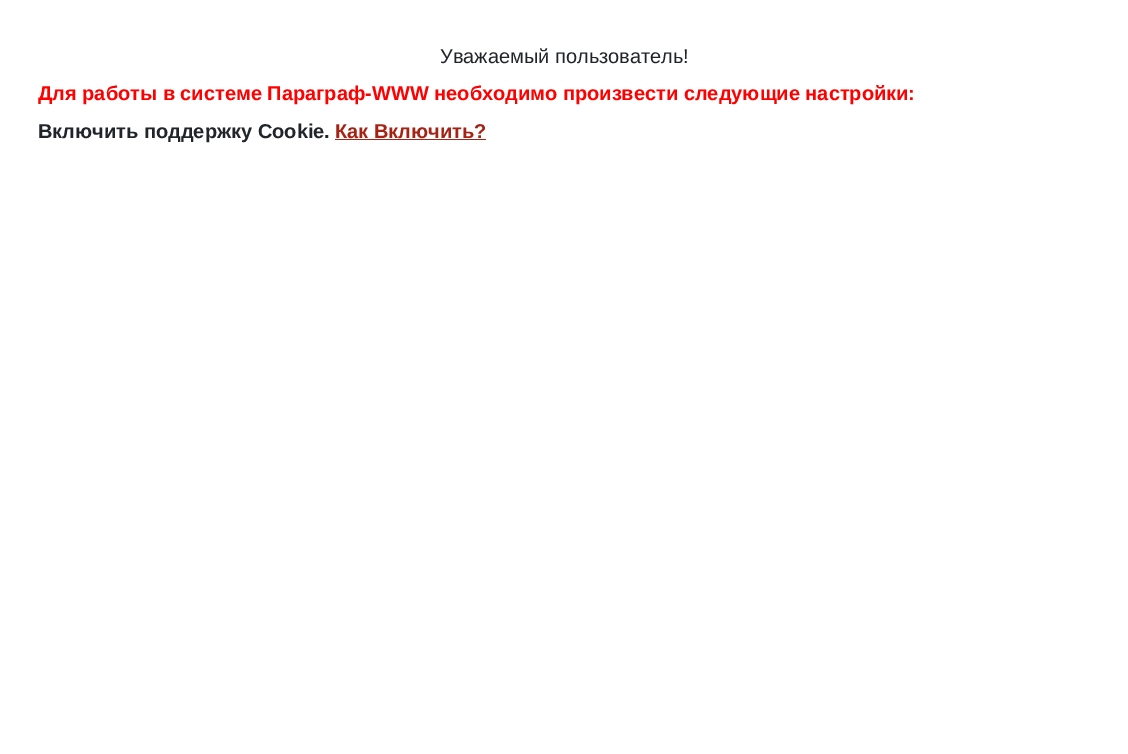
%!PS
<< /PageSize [1128 754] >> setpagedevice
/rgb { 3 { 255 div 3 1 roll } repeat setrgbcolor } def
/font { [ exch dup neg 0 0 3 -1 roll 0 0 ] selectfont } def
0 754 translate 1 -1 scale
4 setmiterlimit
255 255 255 rgb
0 0 1128 754 rectfill
165 35 21 rgb
335 139 151 1 rectfill
/LiberationSans-Regular 20 font
33 37 41 rgb
440 63 moveto (Уважаемый пользователь!) show
/LiberationSans-Bold 20 font
255 0 0 rgb
38 100 moveto (Для работы в системе Параграф-WWW необходимо произвести следующие настройки:) show
33 37 41 rgb
38 138 moveto (Включить поддержку Cookie.) show
165 35 21 rgb
335 138 moveto (Как Включить?) show
showpage
